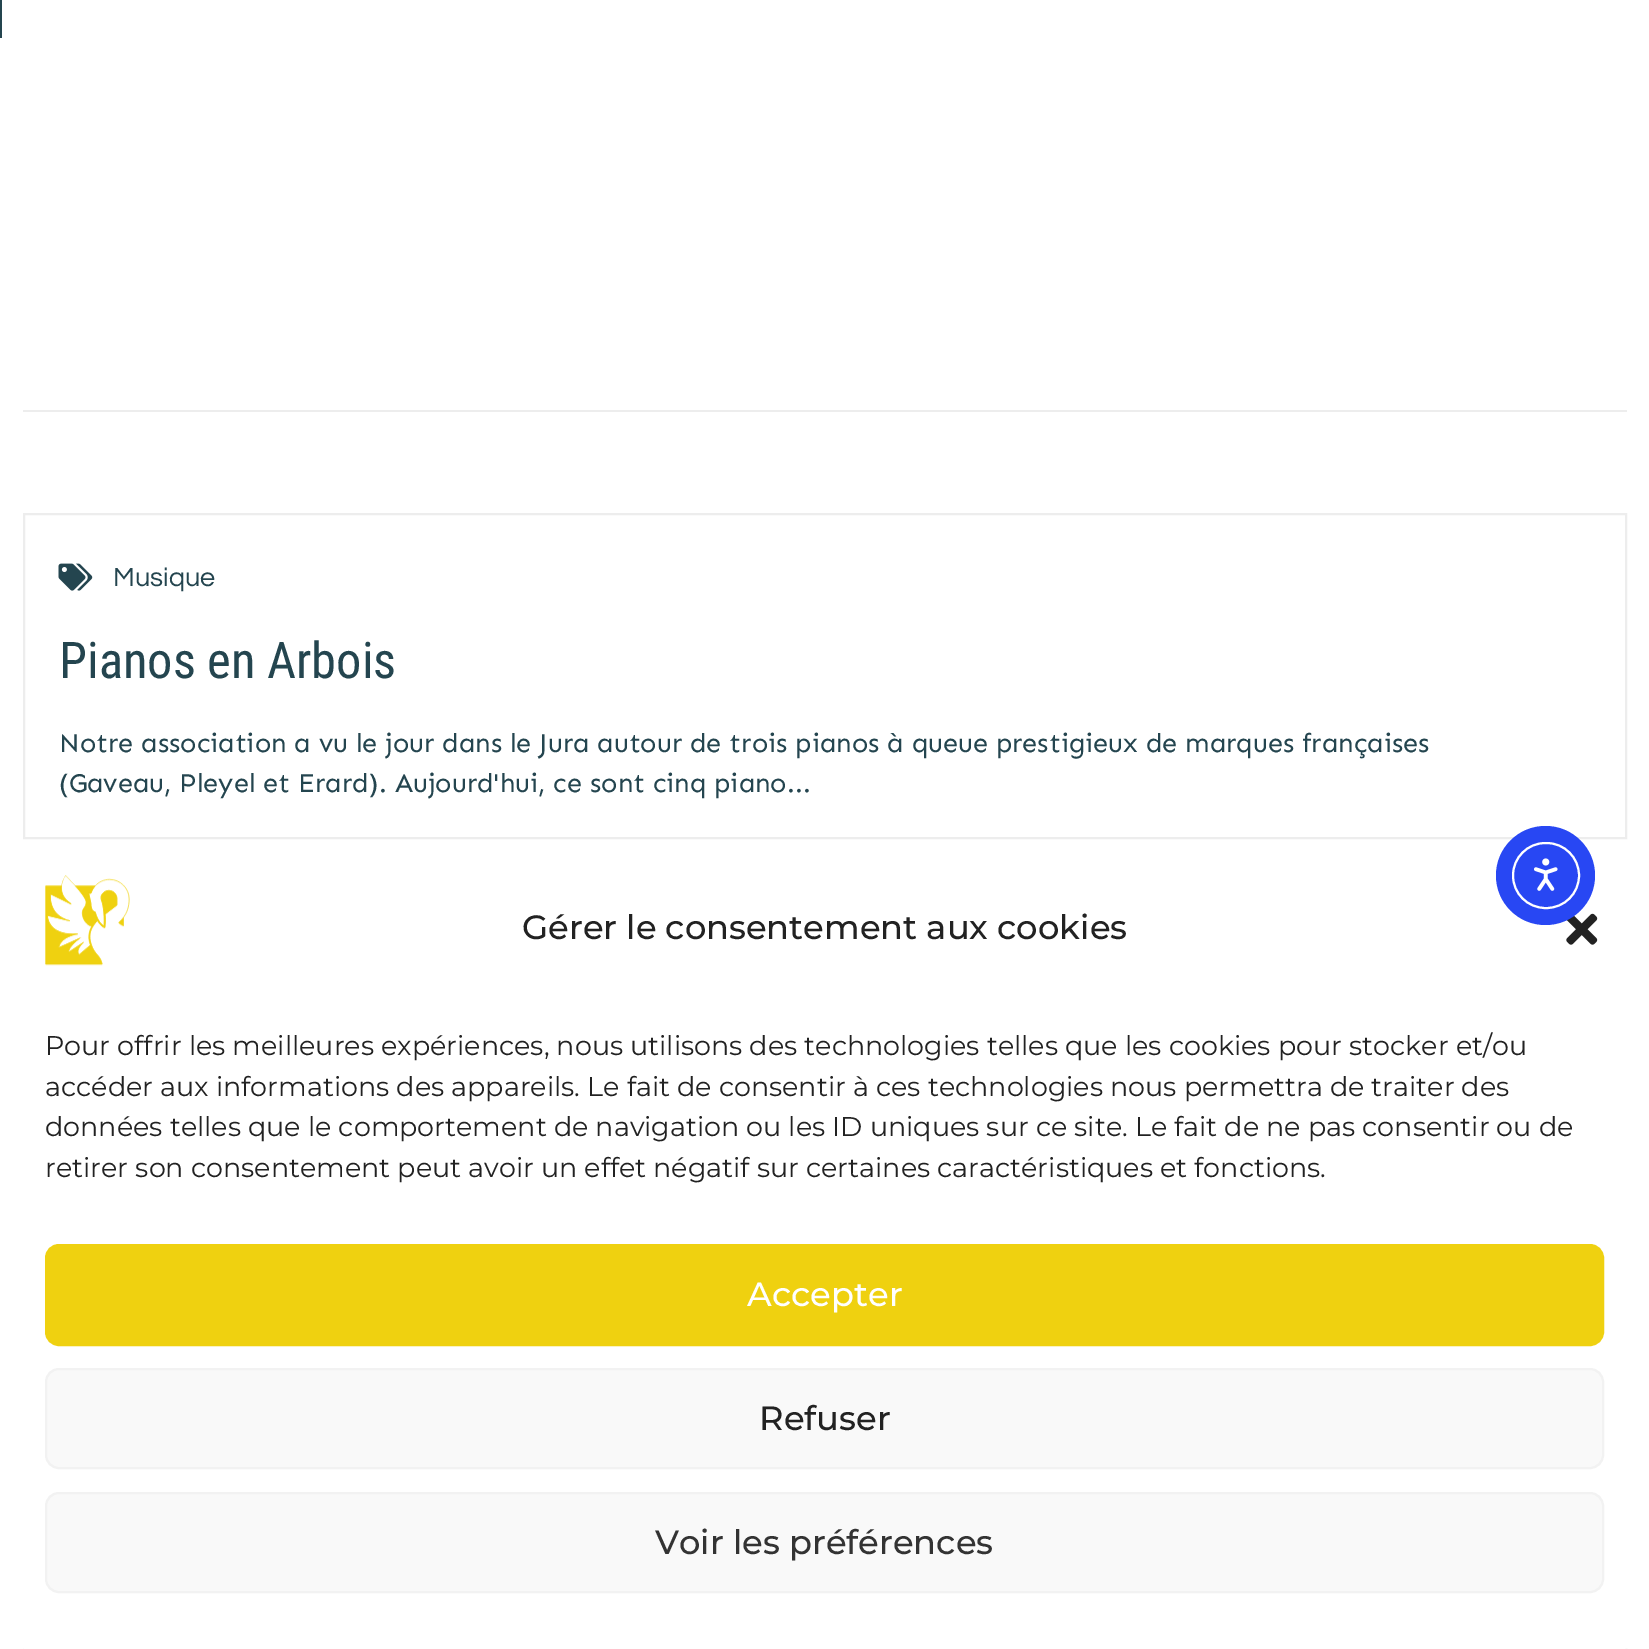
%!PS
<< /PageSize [1649 1649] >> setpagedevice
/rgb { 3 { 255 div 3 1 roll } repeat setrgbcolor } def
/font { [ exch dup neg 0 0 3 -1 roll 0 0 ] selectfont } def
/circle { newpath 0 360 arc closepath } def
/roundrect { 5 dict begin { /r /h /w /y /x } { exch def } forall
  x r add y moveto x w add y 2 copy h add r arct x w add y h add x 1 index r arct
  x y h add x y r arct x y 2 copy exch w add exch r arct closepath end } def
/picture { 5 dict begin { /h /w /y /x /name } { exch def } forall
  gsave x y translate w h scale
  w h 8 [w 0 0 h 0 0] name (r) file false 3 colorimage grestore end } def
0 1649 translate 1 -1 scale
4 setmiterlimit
255 255 255 rgb
0 0 1649 1649 rectfill
36 69 79 rgb
0 0 2 38 rectfill
237 237 237 rgb
23 410 1604 2 rectfill
2 setlinewidth
24 514 1602 324 rectstroke
(img/1.rgb) 58 563 35 28 picture
24 1326 1602 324 rectstroke
255 255 255 rgb
0 842 1649 807 27 roundrect fill
(img/4.rgb) 1566 913 32 32 picture
40 71 243 rgb
1545.5 875.5 49.5 circle fill
255 255 255 rgb
1513 843 66 65 32.5 roundrect stroke
(img/2.rgb) 1534 858 24 33 picture
(img/3.rgb) 45 875 85 91 picture
239 209 16 rgb
46 1245 1557 100 13 roundrect gsave fill grestore
stroke
249 249 249 rgb
46 1369 1557 99 13 roundrect gsave fill grestore
242 242 242 rgb
stroke
249 249 249 rgb
46 1493 1557 99 13 roundrect gsave fill grestore
242 242 242 rgb
stroke
/Questrial-Regular 27 font
36 69 79 rgb
113 586 moveto (Musique) show
/RobotoCondensed-Regular 50.5 font
59 678 moveto (Pianos en Arbois) show
/Sen-Regular 27 font
59 752 moveto (Notre association a vu le jour dans le Jura autour de trois pianos à queue prestigieux de marques françaises) show
59 792 moveto (\(Gaveau, Pleyel et Erard\). Aujourd'hui, ce sont cinq piano...) show
/Montserrat-Medium 33.75 font
34 34 34 rgb
522 939 moveto (Gérer le consentement aux cookies) show
/Montserrat-Regular 27 font
[
  [(Pour offrir les meilleures expériences, nous utilisons des technologies telles que les cookies pour stocker et/ou) 45 1055]
  [(accéder aux informations des appareils. Le fait de consentir à ces technologies nous permettra de traiter des) 45 1096]
  [(données telles que le comportement de navigation ou les ID uniques sur ce site. Le fait de ne pas consentir ou de) 45 1136]
  [(retirer son consentement peut avoir un effet négatif sur certaines caractéristiques et fonctions.) 45 1177]
] { aload pop moveto show } forall
/Montserrat-Medium 33.75 font
255 255 255 rgb
747 1306 moveto (Accepter) show
34 34 34 rgb
759 1430 moveto (Refuser) show
51 51 51 rgb
655 1554 moveto (Voir les préférences) show
showpage
